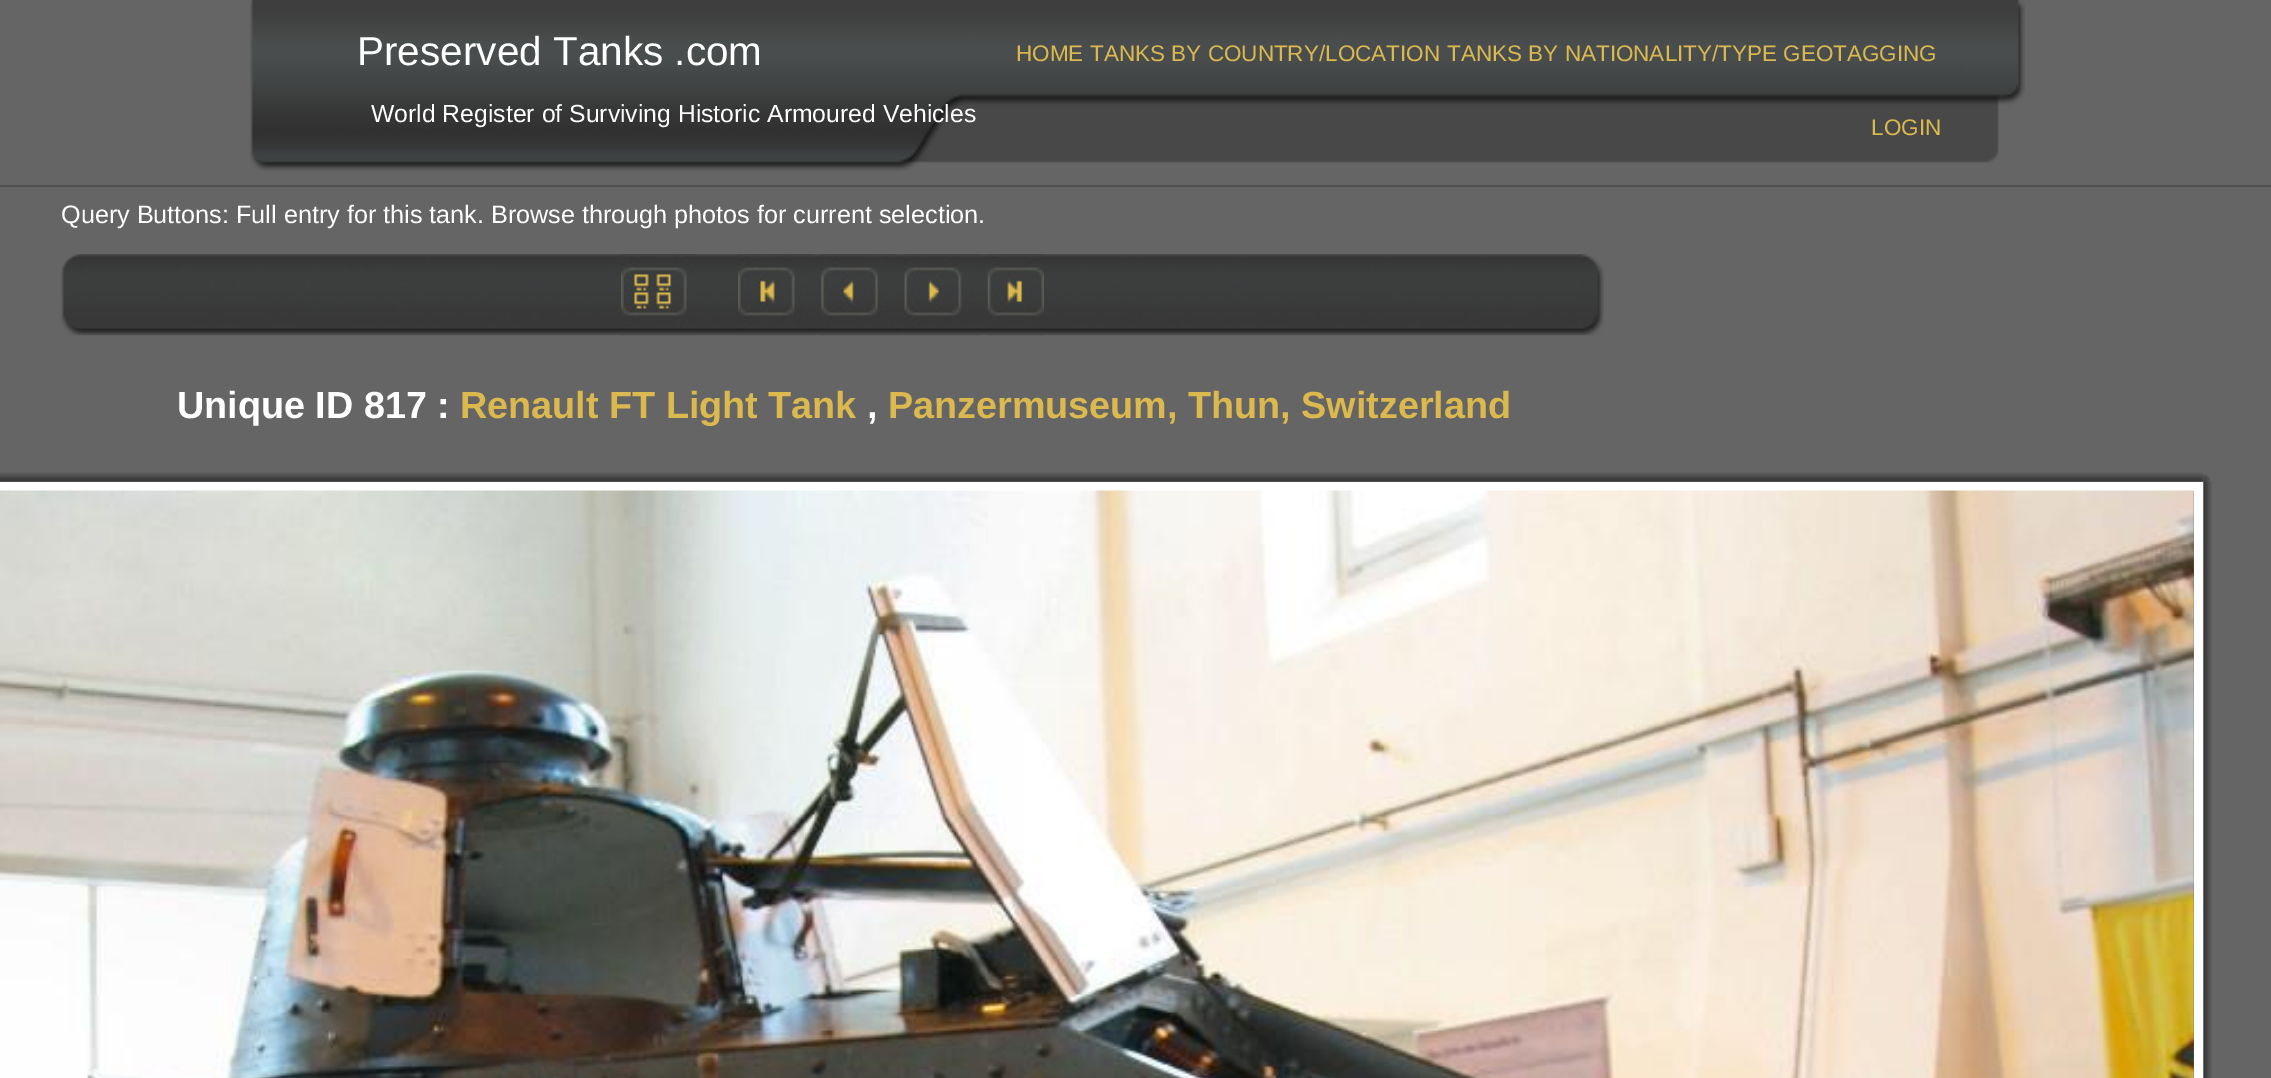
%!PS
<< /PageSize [2271 1078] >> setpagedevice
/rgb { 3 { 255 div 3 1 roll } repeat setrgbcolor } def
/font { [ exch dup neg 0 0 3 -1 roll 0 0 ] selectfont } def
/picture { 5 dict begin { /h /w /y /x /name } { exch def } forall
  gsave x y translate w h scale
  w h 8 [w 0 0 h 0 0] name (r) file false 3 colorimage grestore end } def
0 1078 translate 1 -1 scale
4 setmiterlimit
101 101 101 rgb
0 0 2271 1078 rectfill
(img/1.rgb) 250 0 1775 171 picture
80 80 80 rgb
0 185 2271 2 rectfill
(img/2.rgb) 61 254 1543 82 picture
(img/3.rgb) 621 254 76 82 picture
(img/4.rgb) 738 254 76 82 picture
(img/5.rgb) 821 254 77 82 picture
(img/6.rgb) 904 254 77 82 picture
(img/7.rgb) 987 254 57 82 picture
(img/8.rgb) 0 472 2203 10 picture
(img/9.rgb) 2203 474 7 8 picture
(img/11.rgb) 2202 481 10 597 picture
255 255 255 rgb
9 setlinewidth
-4.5 486.5 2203 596 rectstroke
(img/10.rgb) 0 490 2194 588 picture
/LiberationSans-Regular 40.5 font
357 65 moveto (Preserved Tanks .com) show
/LiberationSans-Regular 24.75 font
371 122 moveto (World Register of Surviving Historic Armoured Vehicles) show
/LiberationSans-Regular 22.5 font
219 185 79 rgb
[
  [(HOME) 1016 61]
  [(TANKS BY COUNTRY/LOCATION) 1090 61]
  [(TANKS BY NATIONALITY/TYPE) 1447 61]
  [(GEOTAGGING) 1783 61]
  [(LOGIN) 1871 135]
] { aload pop moveto show } forall
/LiberationSans-Regular 25.2 font
255 255 255 rgb
61 223 moveto (Query Buttons: Full entry for this tank. Browse through photos for current selection.) show
/LiberationSans-Bold 37.75 font
177 418 moveto (Unique ID 817 :) show
219 185 79 rgb
460 418 moveto (Renault FT Light Tank) show
255 255 255 rgb
867 418 moveto (,) show
219 185 79 rgb
888 418 moveto (Panzermuseum, Thun, Switzerland) show
showpage
